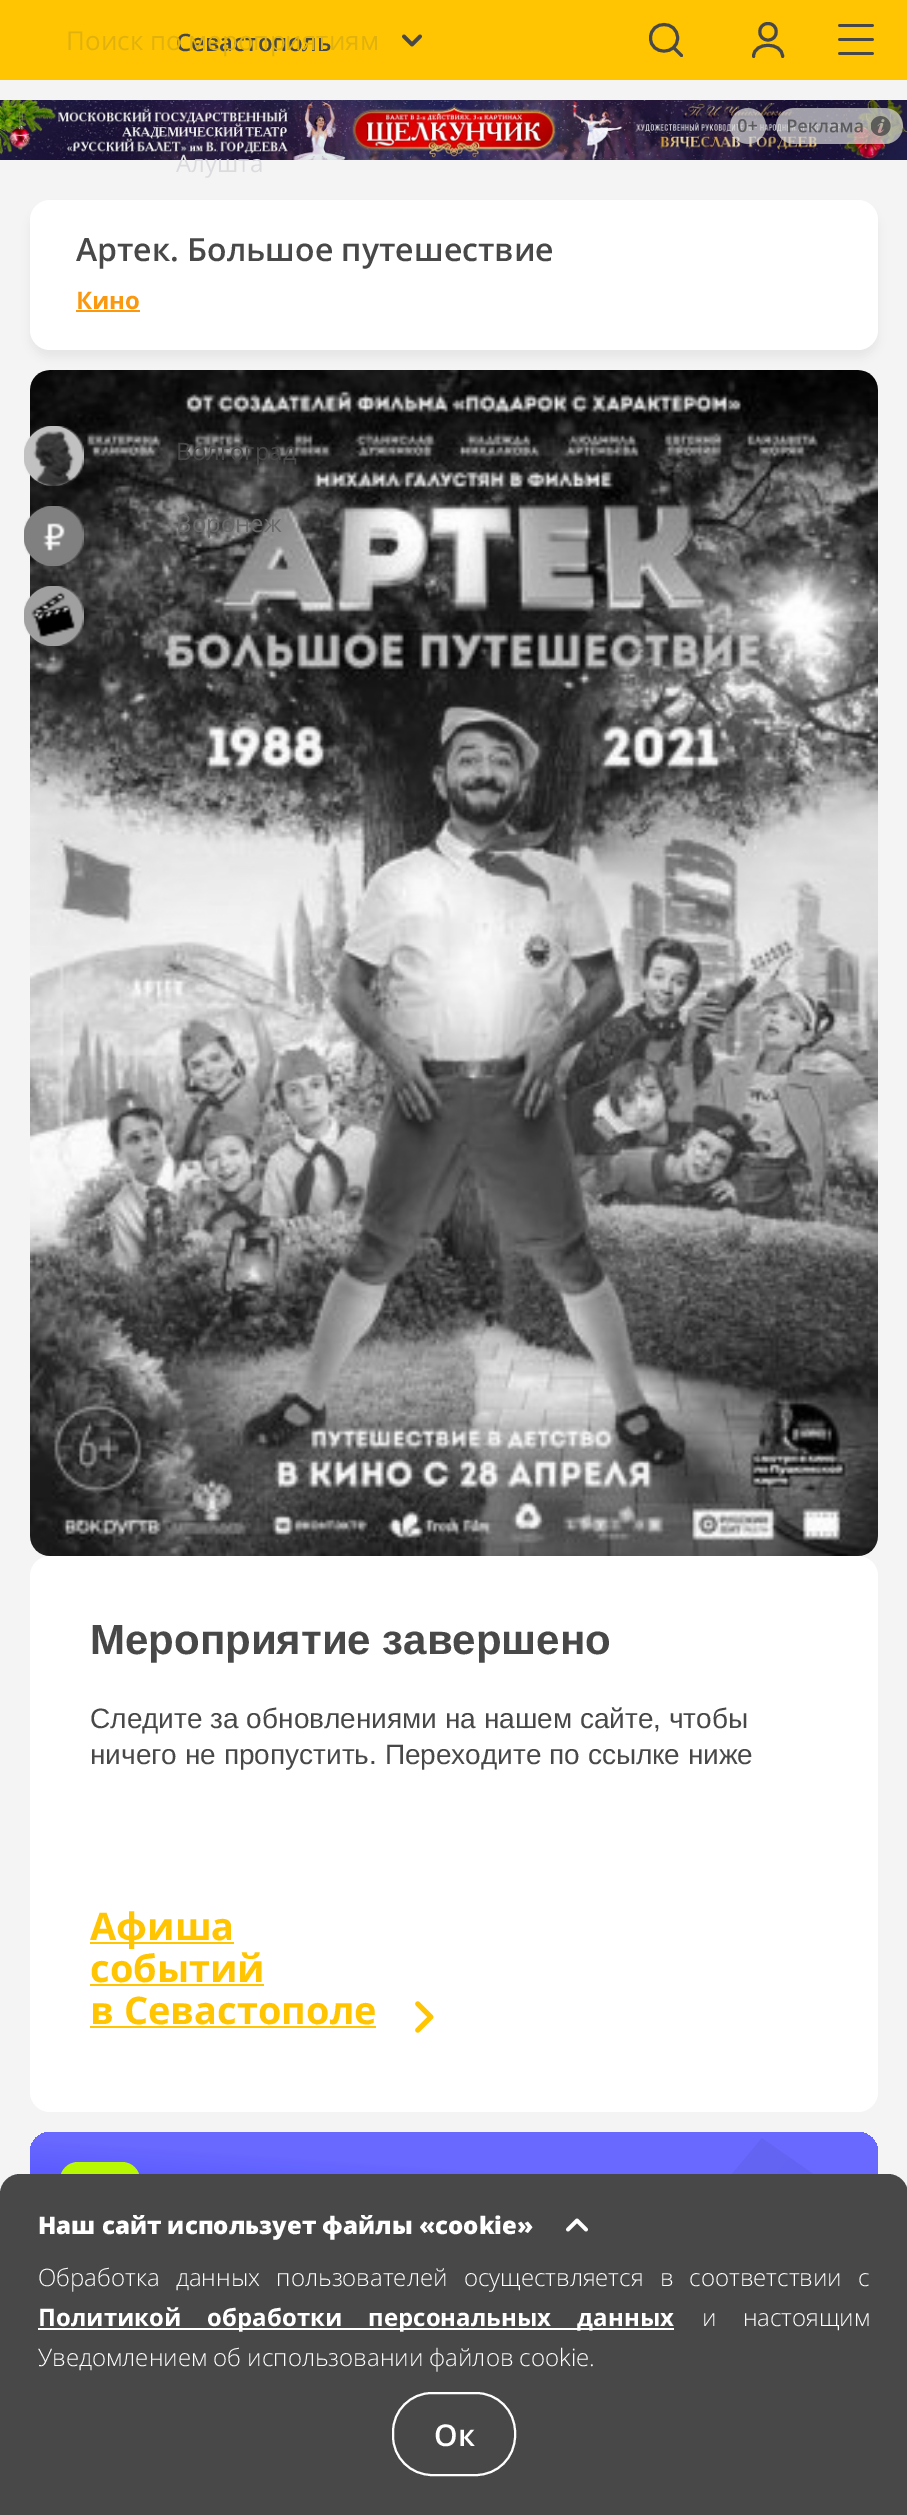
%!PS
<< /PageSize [907 2515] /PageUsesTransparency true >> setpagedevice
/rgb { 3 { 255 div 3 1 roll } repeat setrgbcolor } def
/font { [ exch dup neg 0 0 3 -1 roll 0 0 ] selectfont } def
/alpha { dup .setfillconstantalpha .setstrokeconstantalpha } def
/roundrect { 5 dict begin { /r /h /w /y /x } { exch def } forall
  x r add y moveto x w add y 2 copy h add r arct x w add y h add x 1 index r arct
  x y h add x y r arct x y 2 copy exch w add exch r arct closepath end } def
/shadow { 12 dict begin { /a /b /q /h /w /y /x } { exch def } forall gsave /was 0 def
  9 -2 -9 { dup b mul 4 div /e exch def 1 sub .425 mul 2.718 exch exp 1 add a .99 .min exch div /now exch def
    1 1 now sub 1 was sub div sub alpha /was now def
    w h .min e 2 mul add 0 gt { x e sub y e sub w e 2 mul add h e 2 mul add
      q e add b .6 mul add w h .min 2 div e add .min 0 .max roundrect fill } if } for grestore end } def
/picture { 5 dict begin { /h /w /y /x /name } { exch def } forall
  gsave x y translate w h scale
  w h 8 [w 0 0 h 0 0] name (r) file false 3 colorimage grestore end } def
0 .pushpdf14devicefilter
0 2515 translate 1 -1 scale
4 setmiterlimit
244 244 244 rgb
0 0 907 2515 rectfill
255 197 2 rgb
0 0 907 80 rectfill
72 72 72 rgb
3 setlinewidth
1 setlinecap
673.5 47.5 moveto 681.5 55.5 lineto 677.5 38 moveto 677.5 55.5 650.5 55.5 650.5 38 curveto 650.5 20 677.5 20 677.5 38 curveto closepath stroke
1 setlinejoin
768 40 moveto 779 40 779 23.5 768 23.5 curveto 757 23.5 757 40 768 40 curveto closepath 782.5 56.5 moveto 782.5 41.5 753.5 41.5 753.5 56.5 curveto stroke
(img/1.rgb) 838 24 36 31 picture
3.8 setlinewidth
420 36.5 moveto 412 44.5 lineto 404 36.5 lineto stroke
(img/2.rgb) 0 100 907 60 picture
(img/3.rgb) 730 108 36 36 picture
(img/4.rgb) 776 108 127 36 picture
0 0 0 rgb
30 208 848 150 20 5 0.05 shadow
255 255 255 rgb
30 200 848 150 20 roundrect fill
250 153 15 rgb
76 310 64 2 rectfill
(img/5.rgb) 30 370 848 1186 picture
193 193 193 rgb
24 426 58 60 29 roundrect fill
(img/6.rgb) 24 426 60 60 picture
128 128 128 rgb
24 506 58 60 29 roundrect fill
(img/7.rgb) 24 506 60 60 picture
160 160 160 rgb
24 586 58 60 29 roundrect fill
(img/8.rgb) 24 586 60 60 picture
255 255 255 rgb
30 1556 848 556 20 roundrect fill
[
  [90 1942 144 2 255 197 2]
  [90 1984 174 2 255 197 2]
  [90 2026 286 2 255 197 2]
] { aload pop rgb rectfill } forall
(img/9.rgb) 415 2001 19 32 picture
gsave 30 2132 848 140 20 roundrect clip newpath
<< /ShadingType 2 /ColorSpace /DeviceRGB /Coords [447 2301 461 2103] /Extend [true true] /Function << /FunctionType 3 /Domain [0 1] /Functions [<< /FunctionType 2 /Domain [0 1] /C0 [0.29 0.29 1] /C1 [0.306 0.306 1] /N 1 >> << /FunctionType 2 /Domain [0 1] /C0 [0.306 0.306 1] /C1 [0.412 0.412 1] /N 1 >> << /FunctionType 2 /Domain [0 1] /C0 [0.412 0.412 1] /C1 [0.412 0.412 1] /N 1 >>] /Bounds [0.33 0.67] /Encode [0 1 0 1 0 1] >> >> shfill grestore
(img/10.rgb) 732 2138 82 36 picture
184 248 3 rgb
60 2162 80 80 18 roundrect fill
72 72 72 rgb
20 2174 moveto 888 2174 lineto 899 2174 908 2183 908 2194 curveto 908 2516 lineto 0 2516 lineto 0 2194 lineto 0 2183 9 2174 20 2174 curveto closepath fill
255 255 255 rgb
568 2229.5 moveto 577 2220.5 lineto 586 2229.5 lineto stroke
38 2328 636 2 rectfill
2 setlinewidth
0 setlinecap
0 setlinejoin
393 2393 122 82 39 roundrect stroke
/OpenSans-SemiBold 24 font
72 72 72 rgb
176 51 moveto (Севастополь) show
/OpenSans-Regular 26 font
225 177 13 rgb
66 50 moveto (Поиск по мероприятиям) show
/OpenSans-Regular 24 font
219 218 222 rgb
176 172 moveto (Алушта) show
72 72 72 rgb
176 460 moveto (Волгоград) show
105 105 105 rgb
176 532 moveto (Воронеж) show
/OpenSans-SemiBold 32 font
72 72 72 rgb
76 261 moveto (Артек. Большое путешествие) show
/OpenSans-Bold 24 font
250 153 15 rgb
76 309 moveto (Кино) show
/LiberationSans-Bold 42 font
72 72 72 rgb
90 1654 moveto (Мероприятие завершено) show
/LiberationSans-Regular 28 font
90 1728 moveto (Следите за обновлениями на нашем сайте, чтобы) show
90 1764 moveto (ничего не пропустить. Переходите по ссылке ниже) show
/OpenSans-Bold 38 font
255 197 2 rgb
[
  [(Афиша) 90 1940]
  [(событий) 90 1982]
  [(в Севастополе) 90 2024]
] { aload pop moveto show } forall
/OpenSans-ExtraBold 24 font
255 255 255 rgb
38 2234 moveto (Наш сайт использует файлы «cookie») show
/OpenSans-Light 24 font
38 2286 moveto 10 0 32 (Обработка данных пользователей осуществляется в соответствии с) widthshow
/OpenSans-Bold 24 font
38 2326 moveto 20 0 32 (Политикой обработки персональных данных) widthshow
/OpenSans-Light 24 font
702 2326 moveto 20 0 32 (и настоящим) widthshow
38 2366 moveto (Уведомлением об использовании файлов cookie.) show
/OpenSans-SemiBold 30 font
434 2446 moveto (Ок) show
.poppdf14devicefilter showpage
